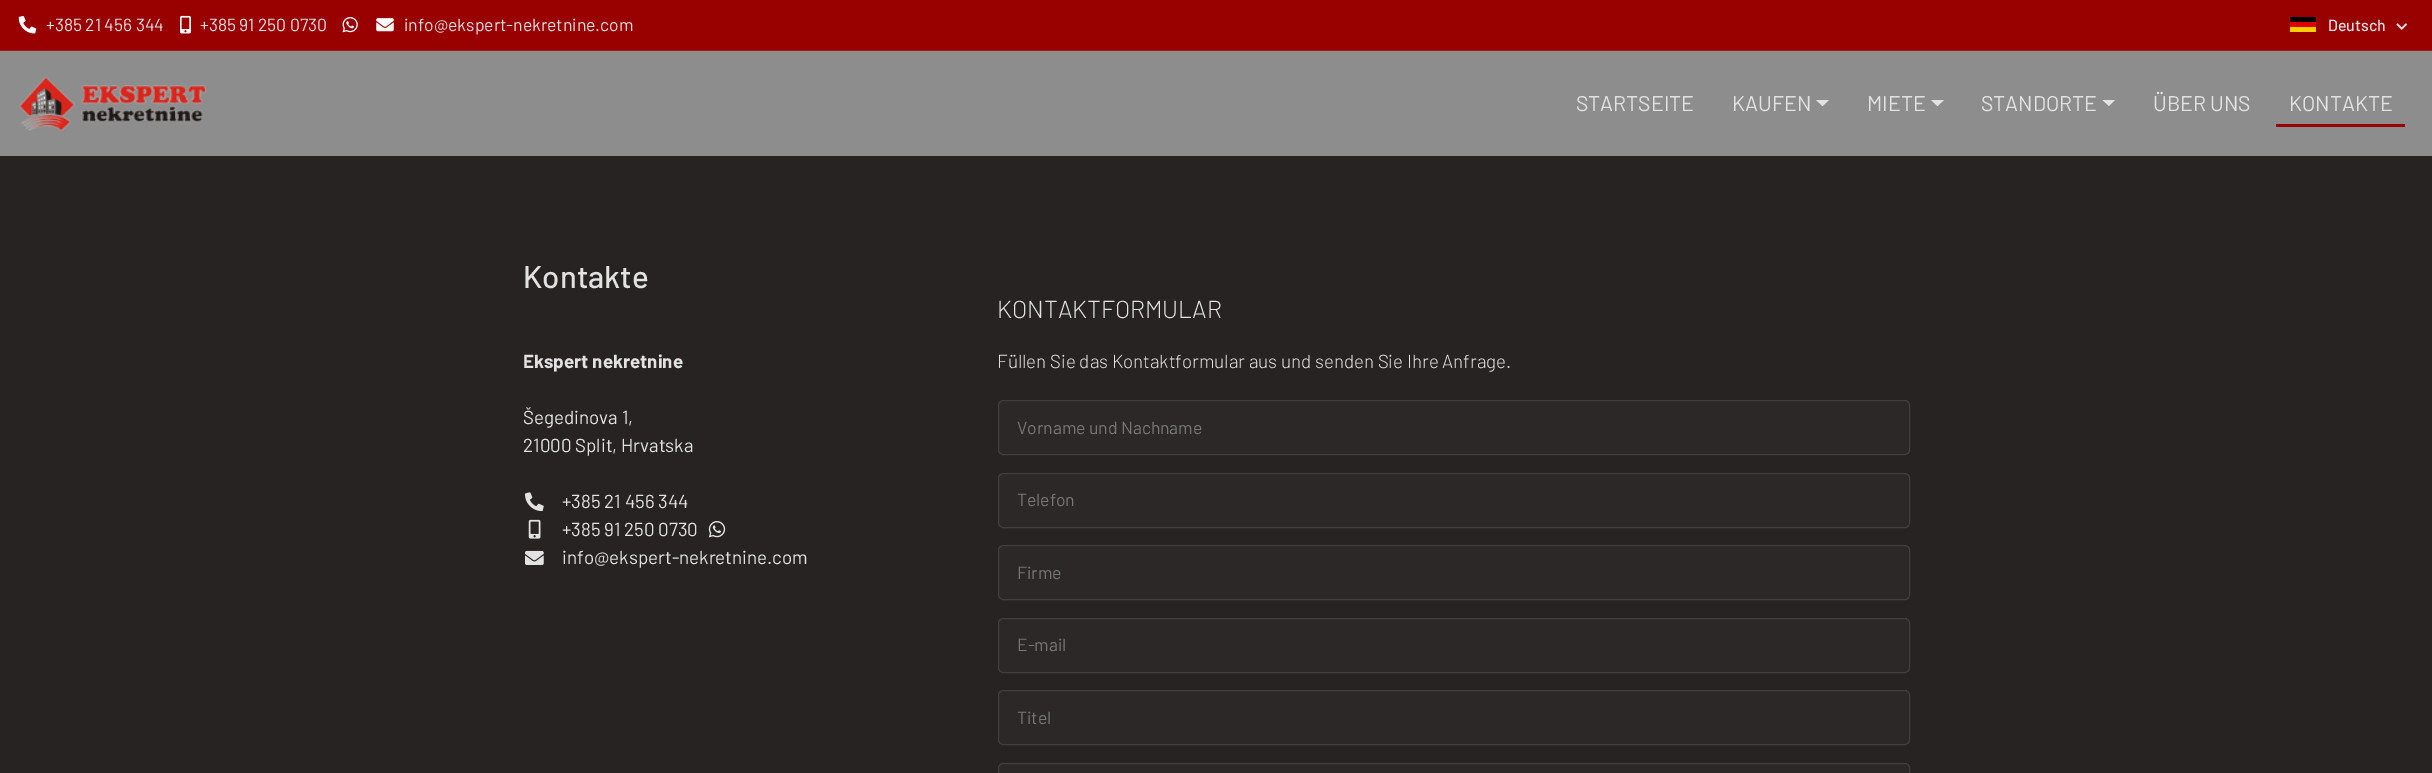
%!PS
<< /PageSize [2432 773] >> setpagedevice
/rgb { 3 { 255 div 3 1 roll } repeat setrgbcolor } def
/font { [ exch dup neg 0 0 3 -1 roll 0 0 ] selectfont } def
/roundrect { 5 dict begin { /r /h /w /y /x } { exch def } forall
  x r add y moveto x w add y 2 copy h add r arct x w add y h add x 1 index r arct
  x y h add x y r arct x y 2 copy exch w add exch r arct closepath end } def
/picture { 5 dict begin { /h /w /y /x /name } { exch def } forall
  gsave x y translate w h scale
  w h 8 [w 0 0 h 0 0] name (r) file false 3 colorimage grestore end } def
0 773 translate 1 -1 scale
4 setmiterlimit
40 35 35 rgb
0 0 2432 773 rectfill
153 1 0 rgb
0 0 2432 50 rectfill
163 26 26 rgb
0 50 2432 1 rectfill
(img/1.rgb) 18 16 19 18 picture
(img/2.rgb) 180 15 11 19 picture
(img/3.rgb) 342 17 16 16 picture
(img/4.rgb) 376 18 18 14 picture
0 0 0 rgb
2290 17 26 5 rectfill
221 0 0 rgb
2290 22 26 5 rectfill
(img/5.rgb) 2396 23 11 7 picture
255 206 0 rgb
2290 27 26 5 rectfill
141 141 141 rgb
0 51 2432 105 rectfill
(img/6.rgb) 19 76 188 55 picture
226 226 226 rgb
1816 100 moveto 1829 100 lineto 1822.5 106 lineto closepath fill
1931 100 moveto 1944 100 lineto 1937.5 106 lineto closepath fill
2102.5 100 moveto 2115 100 lineto 2109 106 lineto closepath fill
153 1 0 rgb
2276 124 129 3 rectfill
(img/7.rgb) 525 492 19 20 picture
(img/8.rgb) 528 519 13 20 picture
(img/9.rgb) 708 521 18 17 picture
(img/10.rgb) 525 550 19 15 picture
45 40 40 rgb
998.5 400.5 911 54 4.5 roundrect gsave fill grestore
66 62 62 rgb
stroke
45 40 40 rgb
998.5 473.5 911 54 4.5 roundrect gsave fill grestore
66 62 62 rgb
stroke
45 40 40 rgb
998.5 545.5 911 54 4.5 roundrect gsave fill grestore
66 62 62 rgb
stroke
45 40 40 rgb
998.5 618.5 911 54 4.5 roundrect gsave fill grestore
66 62 62 rgb
stroke
45 40 40 rgb
998.5 690.5 911 54 4.5 roundrect gsave fill grestore
66 62 62 rgb
stroke
45 40 40 rgb
998.5 763.5 911 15 4.5 roundrect gsave fill grestore
66 62 62 rgb
stroke
/Barlow-Regular 17.5 font
226 226 226 rgb
[
  [(+385 21 456 344) 46 31]
  [(+385 91 250 0730) 200 31]
  [(info@ekspert-nekretnine.com) 404 31]
] { aload pop moveto show } forall
/Barlow-Medium 16 font
2328 31 moveto (Deutsch) show
/Barlow-Regular 21.25 font
[
  [(STARTSEITE) 1576 111]
  [(KAUFEN) 1732 111]
  [(MIETE) 1867 111]
  [(STANDORTE) 1981 111]
  [(ÜBER UNS) 2153 111]
  [(KONTAKTE) 2289 111]
] { aload pop moveto show } forall
/Barlow-Medium 31.25 font
523 288 moveto (Kontakte) show
/Barlow-Bold 18.75 font
523 368 moveto (Ekspert nekretnine) show
/Barlow-Regular 18.75 font
[
  [(Šegedinova 1,) 523 424]
  [(21000 Split, Hrvatska) 523 452]
  [(+385 21 456 344) 562 508]
  [(+385 91 250 0730) 562 536]
  [(info@ekspert-nekretnine.com) 562 564]
] { aload pop moveto show } forall
/Barlow-Light 24.5 font
997 318 moveto (KONTAKTFORMULAR) show
/Barlow-Light 18.75 font
997 368 moveto (Füllen Sie das Kontaktformular aus und senden Sie Ihre Anfrage.) show
/Barlow-Regular 17.5 font
119 119 119 rgb
[
  [(Vorname und Nachname) 1017 434]
  [(Telefon) 1017 506]
  [(Firme) 1017 579]
  [(E-mail) 1017 651]
  [(Titel) 1017 724]
] { aload pop moveto show } forall
showpage
